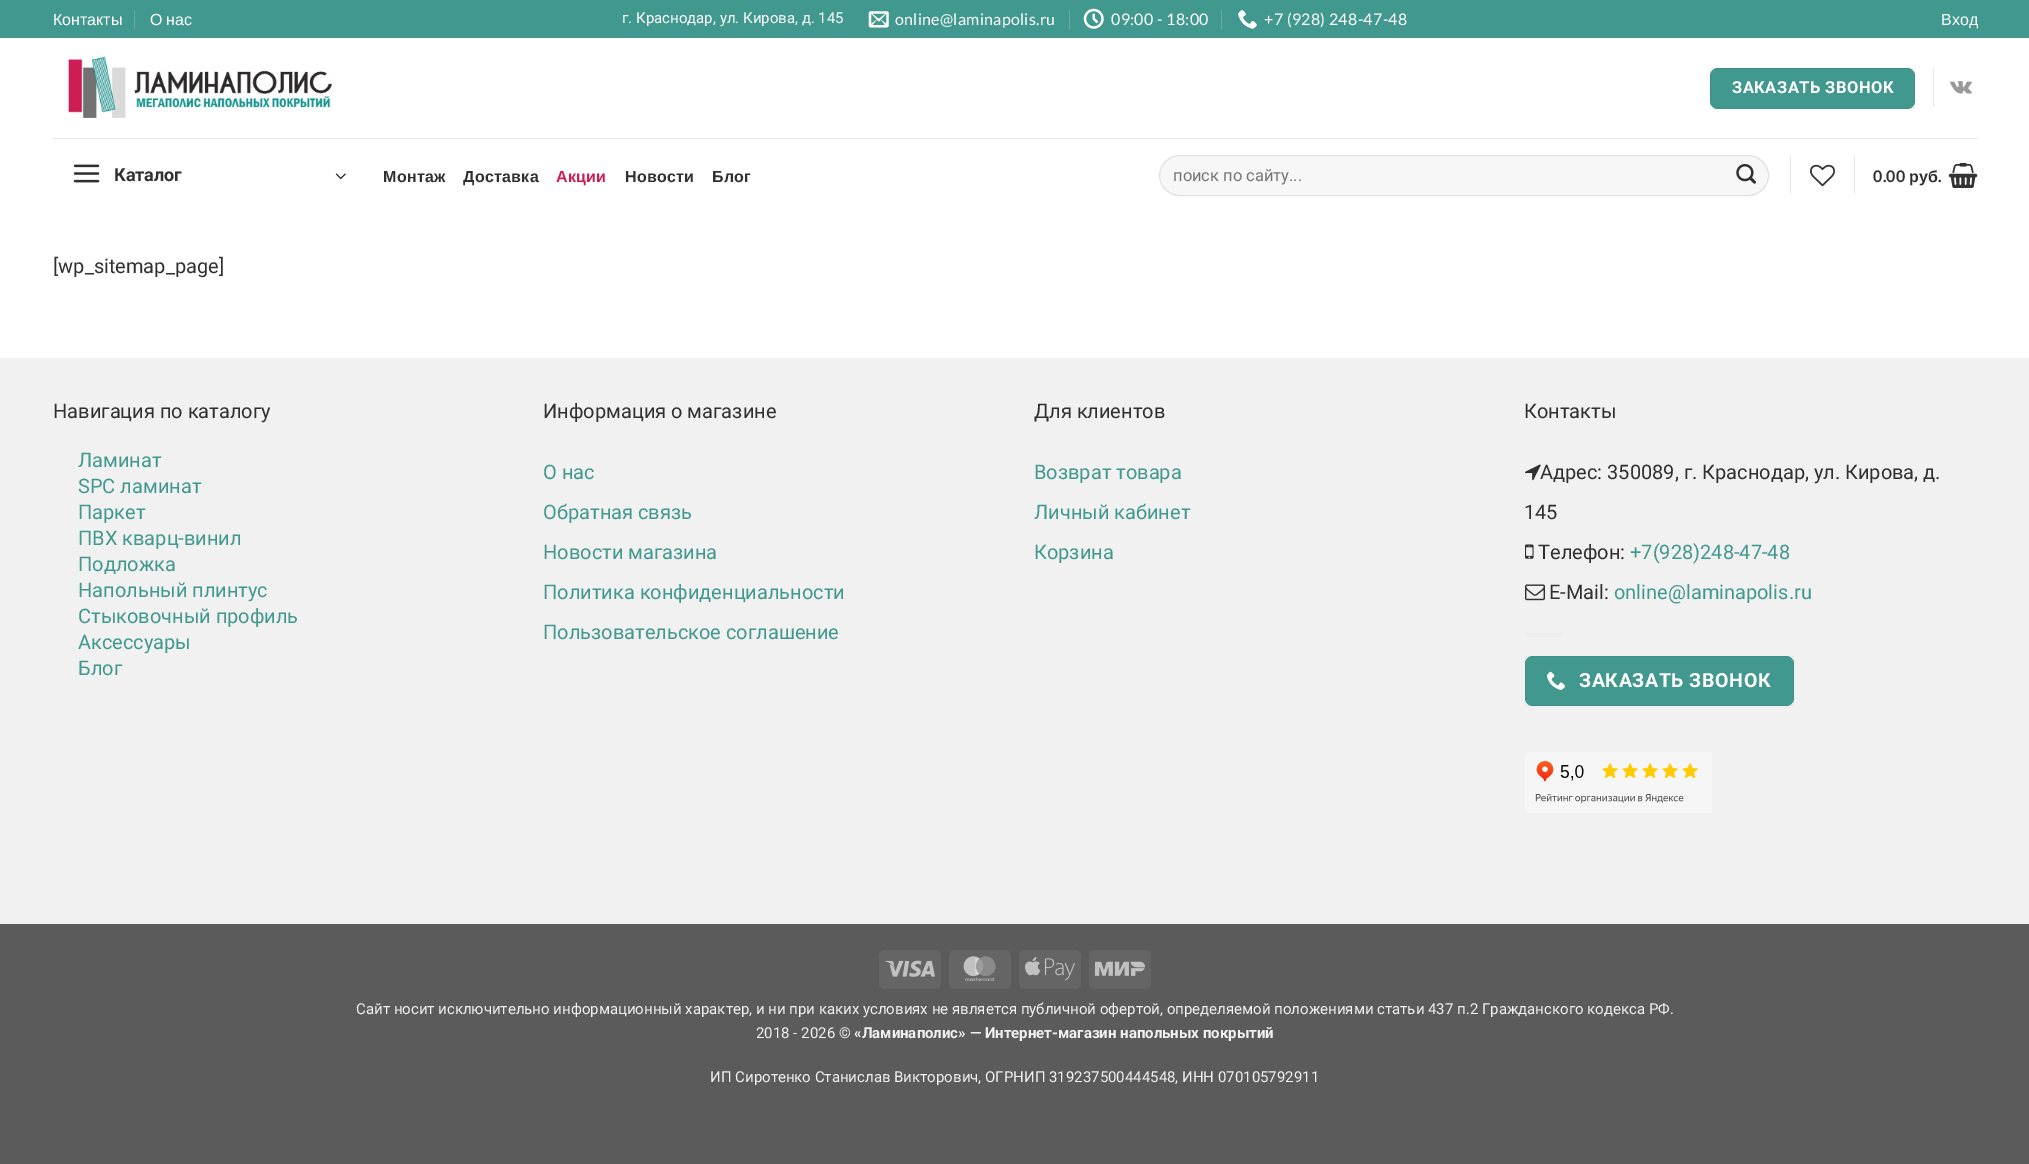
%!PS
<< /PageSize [2029 1164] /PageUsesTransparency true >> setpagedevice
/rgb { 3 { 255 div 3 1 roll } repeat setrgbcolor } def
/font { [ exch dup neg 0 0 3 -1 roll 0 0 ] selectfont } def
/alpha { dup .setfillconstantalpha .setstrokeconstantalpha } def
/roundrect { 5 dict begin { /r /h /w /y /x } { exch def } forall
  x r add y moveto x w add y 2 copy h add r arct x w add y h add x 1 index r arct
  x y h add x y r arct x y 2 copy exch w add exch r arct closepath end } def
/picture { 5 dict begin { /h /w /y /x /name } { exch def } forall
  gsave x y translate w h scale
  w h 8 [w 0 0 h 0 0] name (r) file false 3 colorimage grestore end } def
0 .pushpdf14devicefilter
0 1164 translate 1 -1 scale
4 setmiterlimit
91 91 91 rgb
0 0 2029 1164 rectfill
[
  [0 38 2029 320 255 255 255]
  [0 0 2029 38 65 152 143]
  [134 10 1 19 103 173 165]
] { aload pop rgb rectfill } forall
(img/1.rgb) 868 11 21 17 picture
1069 10 1 19 rectfill
(img/2.rgb) 1083 8 21 21 picture
1221 10 1 19 rectfill
(img/3.rgb) 1238 10 19 19 picture
(img/4.rgb) 64 54 269 64 picture
65 152 143 rgb
1710 68 205 41 8 roundrect fill
0.05 alpha
0 0 0 rgb
1710.5 68.5 204 40 rectstroke
1 alpha
230 230 230 rgb
1933 69 1 37 rectfill
(img/5.rgb) 1950 81 22 13 picture
234 234 234 rgb
53 138 1925 1 rectfill
(img/6.rgb) 73 164 27 19 picture
(img/7.rgb) 335 173 11 7 picture
247 247 247 rgb
1159 155 610 41 20.5 roundrect fill
0.09 alpha
0 0 0 rgb
1159.5 155.5 609 40 20 roundrect stroke
1 alpha
(img/8.rgb) 1736 164 20 20 picture
230 230 230 rgb
1790 156 1 38 rectfill
(img/9.rgb) 1810 164 25 23 picture
1854 156 1 38 rectfill
(img/10.rgb) 1948 163 30 25 picture
241 241 241 rgb
0 358 2029 566 rectfill
(img/11.rgb) 1525 464 16 17 picture
(img/12.rgb) 1525 544 9 15 picture
(img/13.rgb) 1525 584 20 17 picture
237 237 237 rgb
1525 633 38 4 rectfill
65 152 143 rgb
1525 656 269 50 8 roundrect fill
0.05 alpha
0 0 0 rgb
1525.5 656.5 268 49 rectstroke
1 alpha
(img/14.rgb) 1546 671 19 19 picture
(img/15.rgb) 1525 752 187 61 picture
101 101 101 rgb
879 950 62 39 6 roundrect fill
(img/16.rgb) 885 960 50 17 picture
949 950 62 39 6 roundrect fill
(img/17.rgb) 963 956 33 25 picture
1019 950 62 39 6 roundrect fill
(img/18.rgb) 1025 957 50 24 picture
1089 950 62 39 6 roundrect fill
(img/19.rgb) 1095 961 50 15 picture
/LiberationSans-Regular 16 font
255 255 255 rgb
53 25 moveto (Контакты) show
150 25 moveto -1 0 32 (О нас) widthshow
/Roboto-Regular 15 font
622 23 moveto (г. Краснодар, ул. Кирова, д. 145) show
/Lato-Regular 16 font
895 25 moveto 0.3 0 (online@laminapolis.ru) ashow
1111 25 moveto 0.3 0 (09:00 - 18:00) ashow
1264 25 moveto 0.3 0 (+7 \(928\) 248-47-48) ashow
/LiberationSans-Regular 16 font
1941 25 moveto (Вход) show
/Roboto-Bold 16.5 font
1732 93 moveto 0.5 0 (ЗАКАЗАТЬ ЗВОНОК) ashow
/Roboto-Bold 18 font
48 48 48 rgb
114 181 moveto (Каталог) show
/LiberationSans-Bold 16 font
383 182 moveto 0.3 0 (Монтаж) ashow
463 182 moveto 0.3 0 (Доставка) ashow
206 29 84 rgb
556 182 moveto 0.3 0 (Акции) ashow
48 48 48 rgb
625 182 moveto 0.3 0 (Новости) ashow
712 182 moveto 0.3 0 (Блог) ashow
/Roboto-Regular 16.5 font
117 117 117 rgb
1173 181 moveto (поиск по сайту...) show
/Lato-Bold 16 font
48 48 48 rgb
1873 182 moveto 0.3 0 (0.00) ashow
/LiberationSans-Bold 16 font
1909 182 moveto 0.3 0 (руб) ashow
/Lato-Bold 16 font
1938 182 moveto 0.3 0 (.) ashow
/Roboto-Regular 20 font
53 273 moveto ([wp_sitemap_page]) show
53 418 moveto (Навигация по каталогу) show
65 152 143 rgb
[
  [(Ламинат) 78 467]
  [(SPC ламинат) 78 493]
  [(Паркет) 78 519]
  [(ПВХ кварц-винил) 78 545]
  [(Подложка) 78 571]
  [(Напольный плинтус) 78 597]
  [(Стыковочный профиль) 78 623]
  [(Аксессуары) 78 649]
  [(Блог) 78 675]
] { aload pop moveto show } forall
48 48 48 rgb
543 418 moveto (Информация о магазине) show
65 152 143 rgb
[
  [(О нас) 543 479]
  [(Обратная связь) 543 519]
  [(Новости магазина) 543 559]
  [(Политика конфиденциальности) 543 599]
  [(Пользовательское соглашение) 543 639]
] { aload pop moveto show } forall
48 48 48 rgb
1034 418 moveto (Для клиентов) show
65 152 143 rgb
[
  [(Возврат товара) 1034 479]
  [(Личный кабинет) 1034 519]
  [(Корзина) 1034 559]
] { aload pop moveto show } forall
48 48 48 rgb
[
  [(Контакты) 1524 418]
  [(Адрес: 350089, г. Краснодар, ул. Кирова, д.) 1540 479]
  [(145) 1524 519]
  [(Телефон:) 1538 559]
] { aload pop moveto show } forall
65 152 143 rgb
1630 559 moveto (+7\(928\)248-47-48) show
48 48 48 rgb
1549 599 moveto (E-Mail:) show
65 152 143 rgb
1614 599 moveto (online@laminapolis.ru) show
/Roboto-Bold 19.5 font
255 255 255 rgb
1579 687 moveto 0.6 0 (ЗАКАЗАТЬ ЗВОНОК) ashow
/Roboto-Regular 15 font
241 241 241 rgb
356 1014 moveto (Сайт носит исключительно информационный характер, и ни при каких условиях не является публичной офертой, определяемой положениями статьи 437 п.2 Гражданского кодекса РФ.) show
756 1038 moveto (2018 - 2026 ©) show
/Roboto-Bold 15 font
854 1038 moveto («Ламинаполис» — Интернет-магазин напольных покрытий) show
/Roboto-Regular 15 font
710 1082 moveto (ИП Сиротенко Станислав Викторович, ОГРНИП 319237500444548, ИНН 070105792911) show
.poppdf14devicefilter showpage
